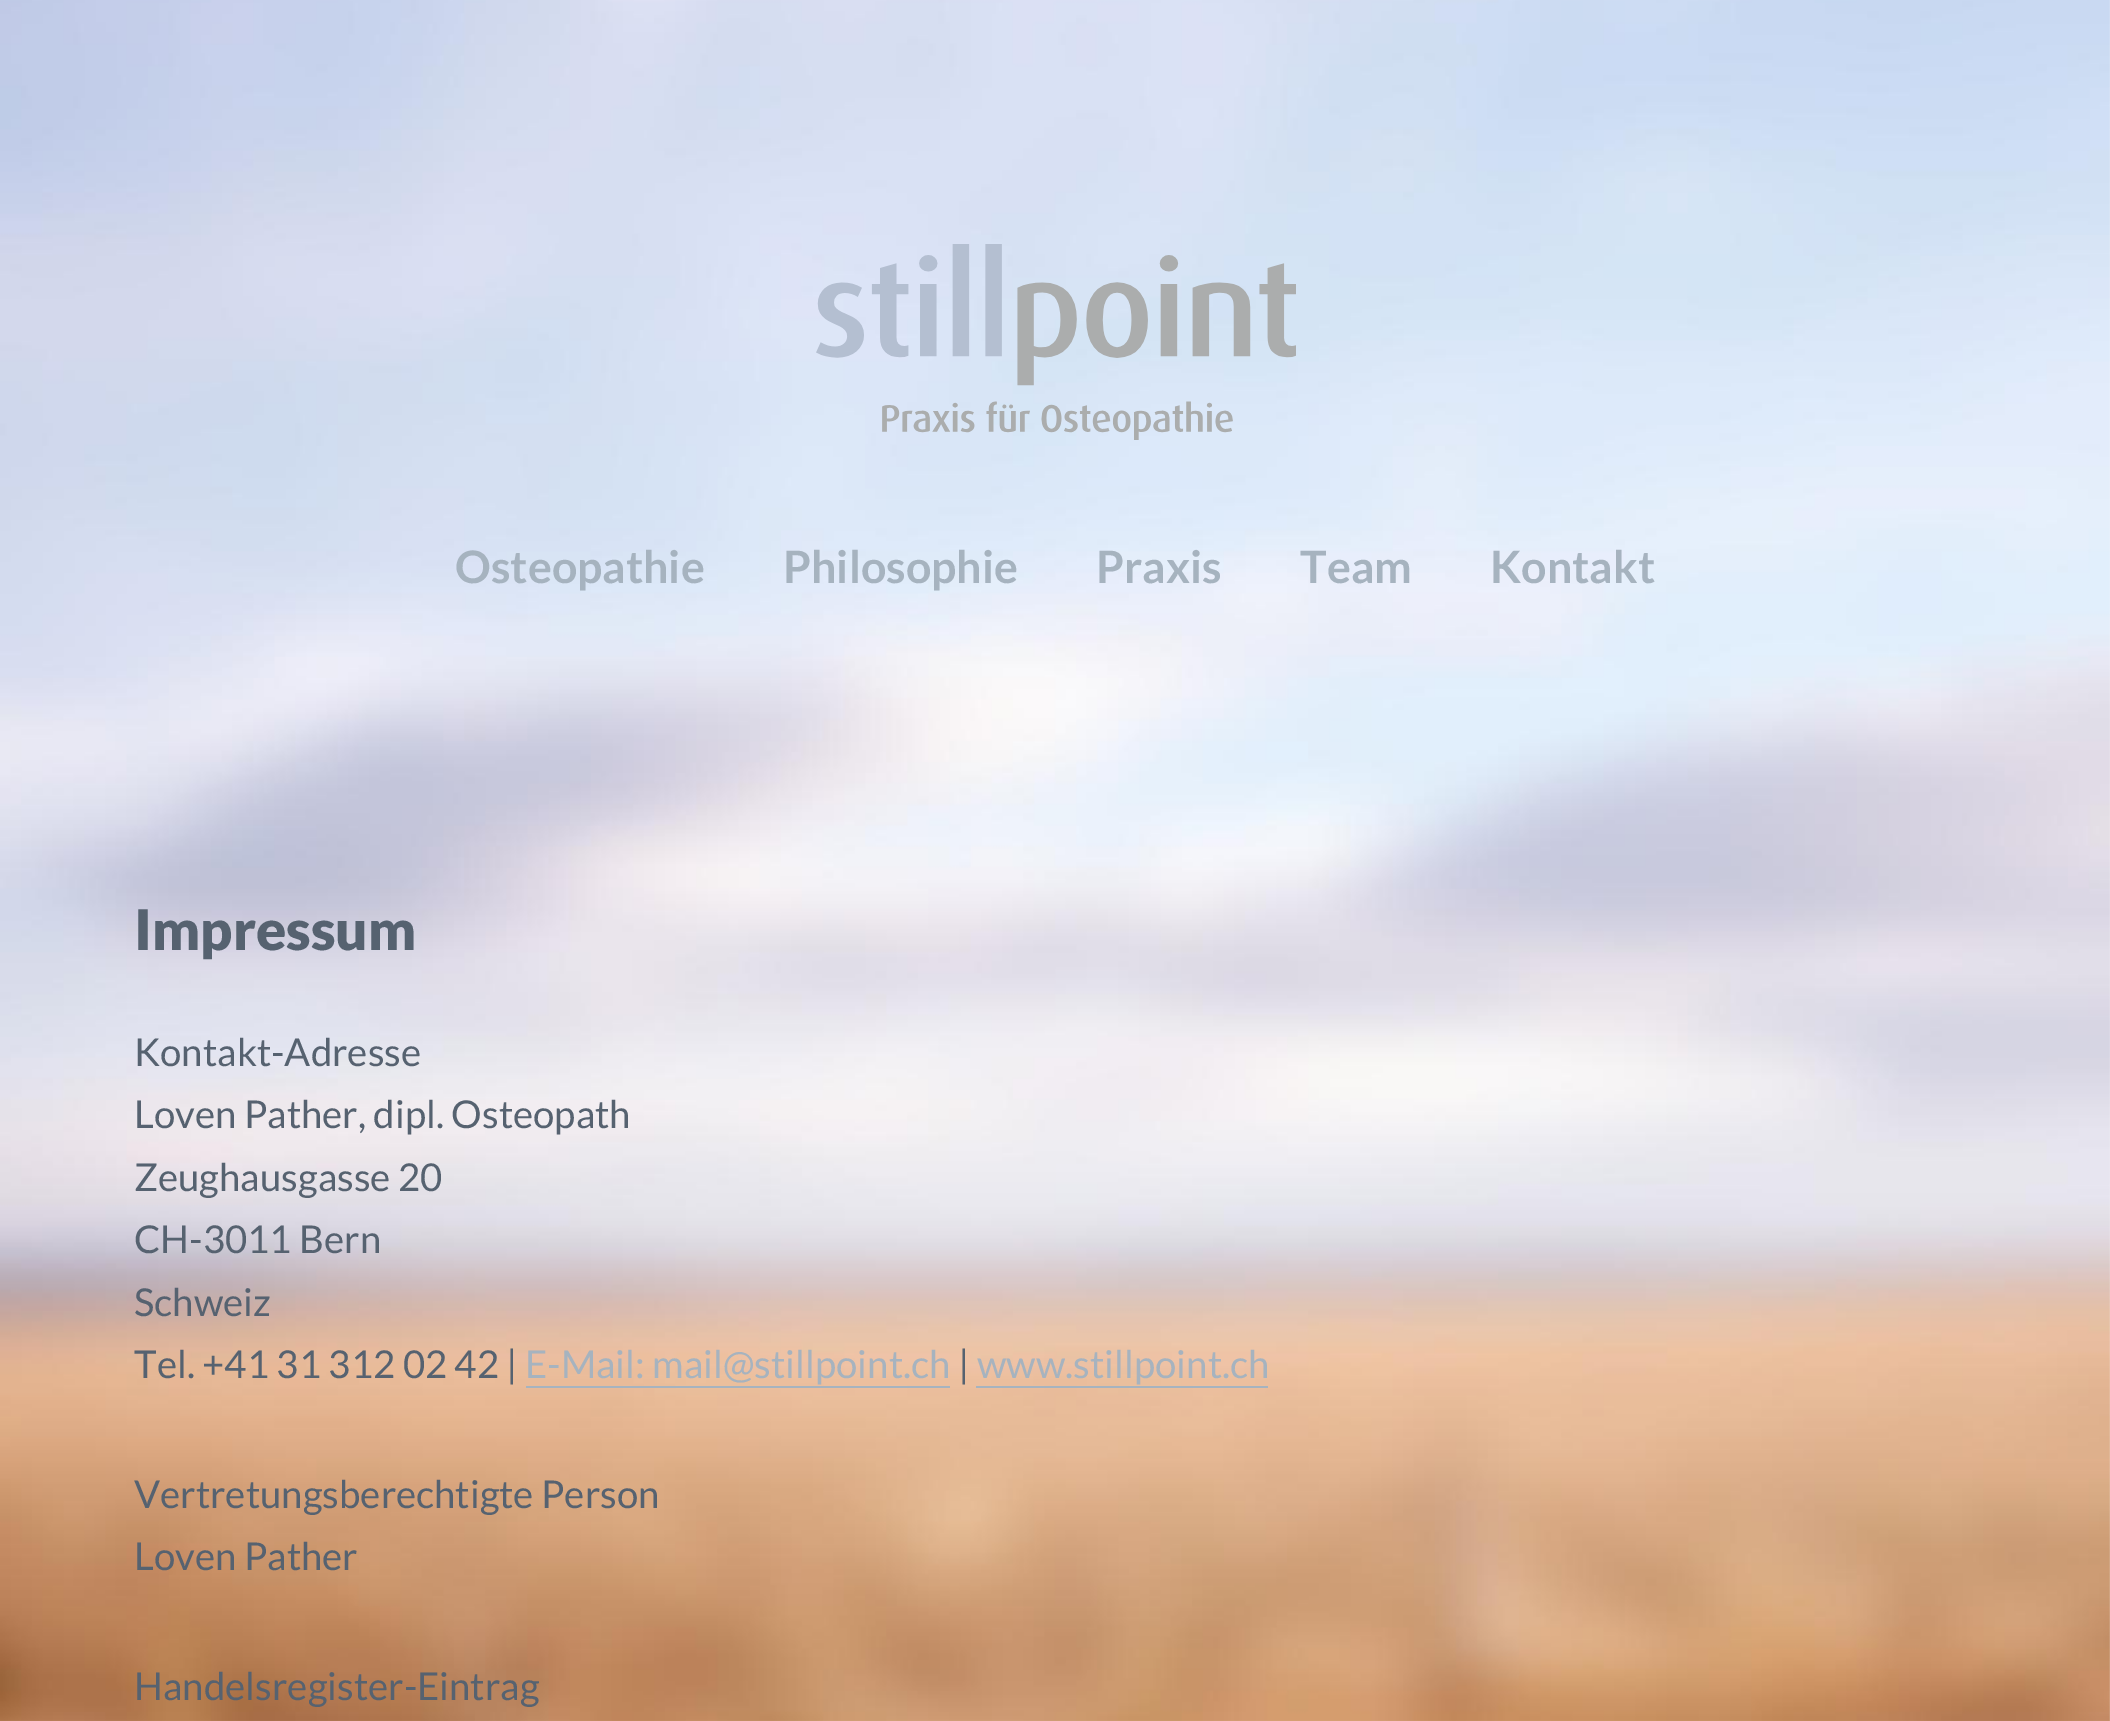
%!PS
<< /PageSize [2110 1721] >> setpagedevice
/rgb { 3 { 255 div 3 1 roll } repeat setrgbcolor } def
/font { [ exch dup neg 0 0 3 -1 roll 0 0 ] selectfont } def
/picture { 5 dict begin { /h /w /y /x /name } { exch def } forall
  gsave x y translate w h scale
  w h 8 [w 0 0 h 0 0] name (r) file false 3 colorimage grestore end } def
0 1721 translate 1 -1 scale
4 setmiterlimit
255 255 255 rgb
0 0 2110 1721 rectfill
(img/1.rgb) 0 0 2110 1721 picture
(img/2.rgb) 816 244 480 196 picture
166 179 191 rgb
526 1386 424 2 rectfill
976 1386 292 2 rectfill
/Lato-Bold 44.75 font
[
  [(Osteopathie) 455 583]
  [(Philosophie) 783 583]
  [(Praxis) 1096 583]
  [(Team) 1300 583]
  [(Kontakt) 1490 583]
] { aload pop moveto show } forall
/Lato-Black 56 font
86 98 112 rgb
134 950 moveto (Impressum) show
/Lato-Regular 38.4 font
[
  [(Kontakt-Adresse) 134 1066]
  [(Loven Pather, dipl. Osteopath) 134 1128]
  [(Zeughausgasse 20) 134 1191]
  [(CH-3011 Bern) 134 1253]
  [(Schweiz) 134 1316]
  [(Tel. +41 31 312 02 42 |) 134 1378]
] { aload pop moveto show } forall
166 179 191 rgb
525 1378 moveto (E-Mail: mail@stillpoint.ch) show
86 98 112 rgb
958 1378 moveto (|) show
166 179 191 rgb
977 1378 moveto (www.stillpoint.ch) show
86 98 112 rgb
[
  [(Vertretungsberechtigte Person) 134 1508]
  [(Loven Pather) 134 1570]
  [(Handelsregister-Eintrag) 134 1700]
] { aload pop moveto show } forall
showpage
